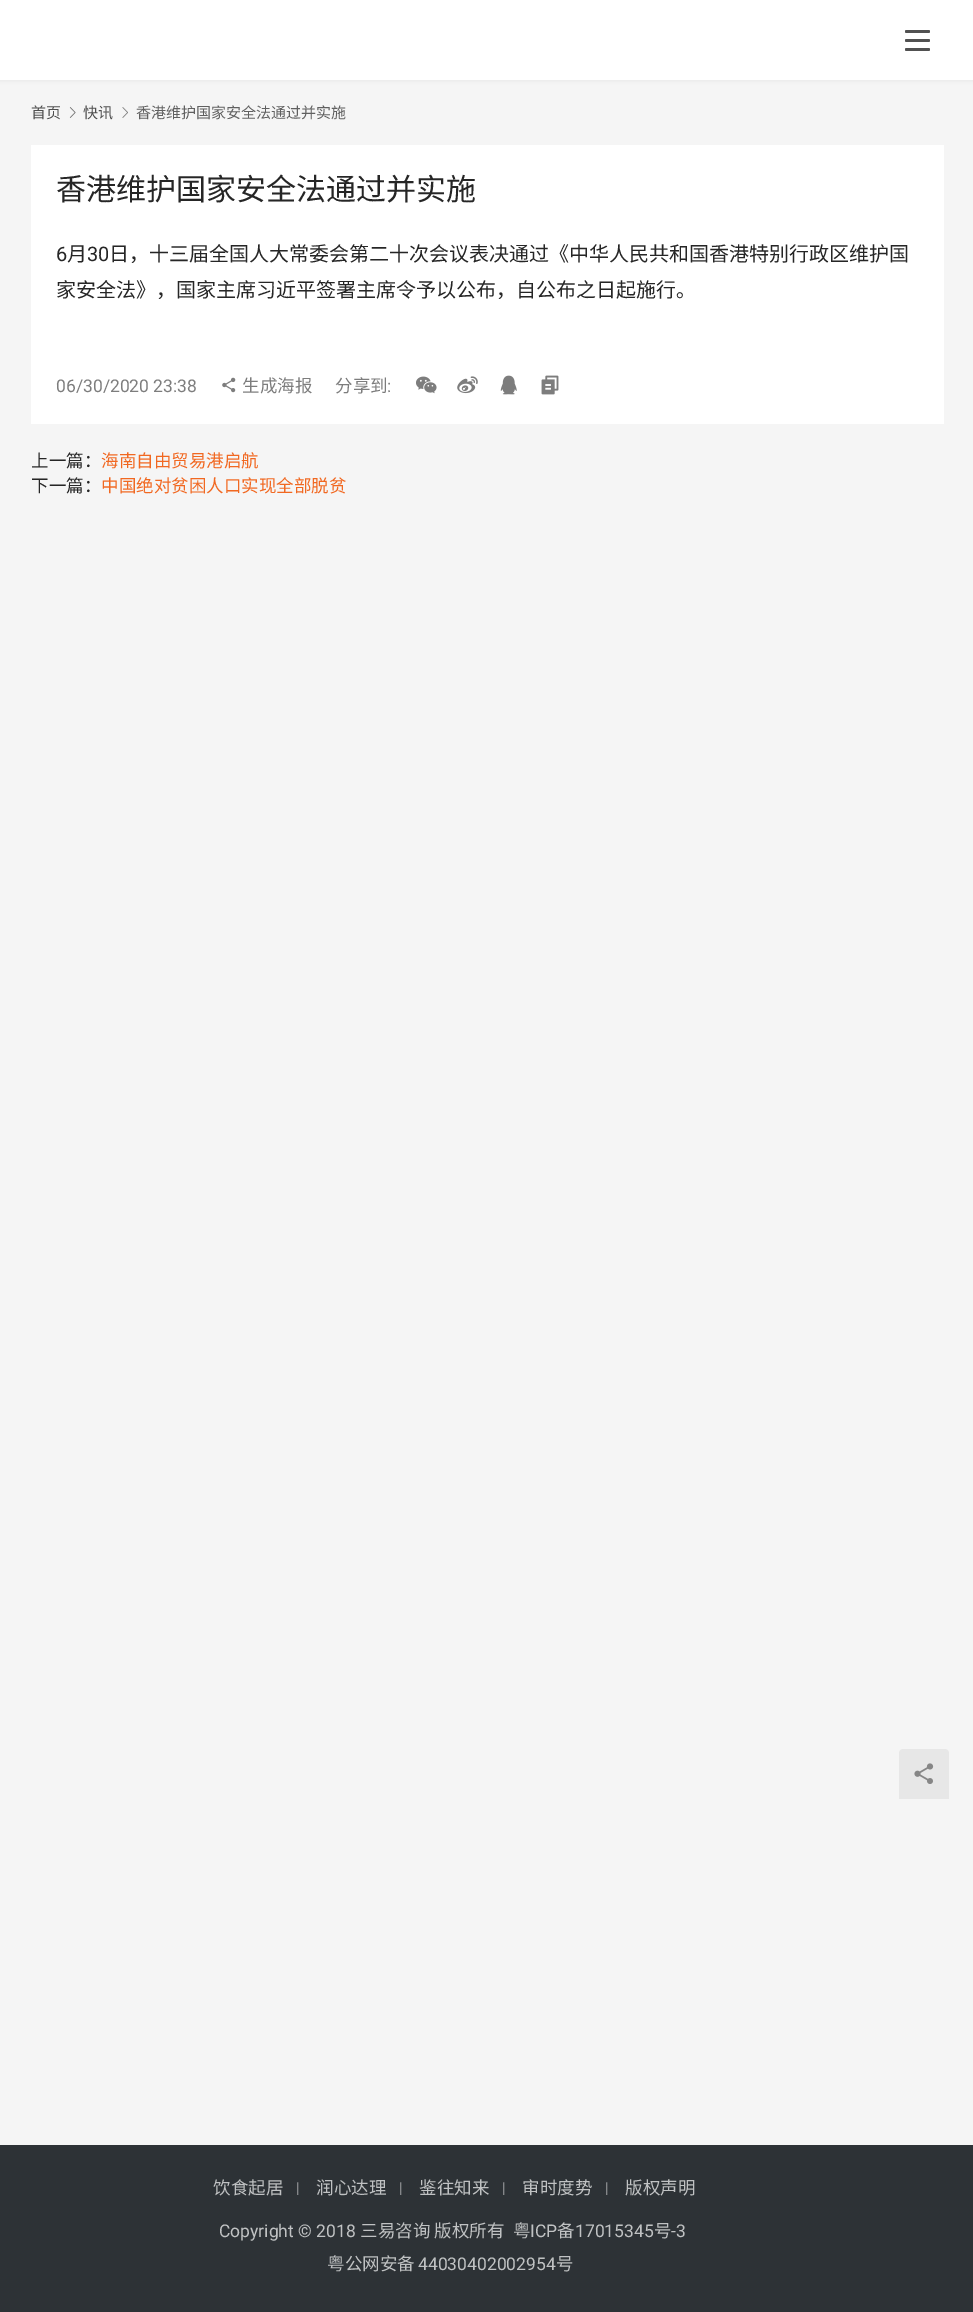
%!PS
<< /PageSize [973 2312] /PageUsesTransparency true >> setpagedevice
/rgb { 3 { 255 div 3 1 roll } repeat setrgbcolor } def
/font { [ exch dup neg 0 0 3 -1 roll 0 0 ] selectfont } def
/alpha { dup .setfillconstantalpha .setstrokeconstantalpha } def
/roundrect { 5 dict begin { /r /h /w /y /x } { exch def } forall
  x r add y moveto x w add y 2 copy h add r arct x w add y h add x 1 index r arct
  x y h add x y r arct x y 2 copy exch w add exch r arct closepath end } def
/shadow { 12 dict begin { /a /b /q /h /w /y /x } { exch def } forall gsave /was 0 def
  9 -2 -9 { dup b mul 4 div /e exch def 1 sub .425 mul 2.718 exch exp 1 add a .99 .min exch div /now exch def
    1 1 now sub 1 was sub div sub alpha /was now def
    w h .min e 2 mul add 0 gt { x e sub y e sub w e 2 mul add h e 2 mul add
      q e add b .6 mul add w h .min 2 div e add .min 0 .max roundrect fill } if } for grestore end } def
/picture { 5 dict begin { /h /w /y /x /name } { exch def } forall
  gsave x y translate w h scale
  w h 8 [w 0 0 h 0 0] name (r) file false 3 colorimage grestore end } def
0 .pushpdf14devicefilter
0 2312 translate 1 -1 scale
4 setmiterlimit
245 245 245 rgb
0 0 973 2312 rectfill
38 38 38 rgb
-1 -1 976 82 0 2 0.06 shadow
255 255 255 rgb
0 0 973 80 rectfill
81 81 81 rgb
905 30 25 3 1.5 roundrect fill
905 39 25 3 1.5 roundrect fill
905 48 25 3 1.5 roundrect fill
(img/1.rgb) 69 107 7 11 picture
(img/2.rgb) 122 107 6 11 picture
255 255 255 rgb
31 145 913 279 rectfill
(img/3.rgb) 222 377 14 16 picture
(img/4.rgb) 416 376 21 18 picture
(img/5.rgb) 457 376 21 18 picture
(img/6.rgb) 500 375 17 20 picture
(img/7.rgb) 541 375 18 20 picture
231 231 231 rgb
903 1749 moveto 945 1749 lineto 947 1749 949 1751 949 1753 curveto 949 1799 lineto 899 1799 lineto 899 1753 lineto 899 1751 901 1749 903 1749 curveto closepath fill
(img/8.rgb) 914 1763 20 21 picture
45 50 54 rgb
0 2145 973 167 rectfill
/NotoSansCJKSC-Regular 15 font
79 79 79 rgb
31 118 moveto (首页) show
83 118 moveto (快讯) show
96 96 96 rgb
136 118 moveto (香港维护国家安全法通过并实施) show
/NotoSansCJKSC-Regular 30 font
38 38 38 rgb
56 200 moveto (香港维护国家安全法通过并实施) show
/Roboto-Regular 20 font
56 261 moveto (6) show
/NotoSansCJKSC-Regular 20 font
67 261 moveto (月) show
/Roboto-Regular 20 font
87 261 moveto (30) show
/NotoSansCJKSC-Regular 20 font
109 261 moveto (日，十三届全国人大常委会第二十次会议表决通过《中华人民共和国香港特别行政区维护国) show
56 297 moveto (家安全法》，国家主席习近平签署主席令予以公布，自公布之日起施行。) show
/Roboto-Regular 17.5 font
125 125 125 rgb
56 392 moveto (06/30/2020 23:38) show
/NotoSansCJKSC-Regular 17.5 font
242 392 moveto (生成海报) show
335 392 moveto (分享到) show
/Roboto-Regular 17.5 font
387 392 moveto (:) show
/NotoSansCJKSC-Regular 17.5 font
38 38 38 rgb
31 467 moveto (上一篇：) show
241 104 33 rgb
101 467 moveto (海南自由贸易港启航) show
38 38 38 rgb
31 492 moveto (下一篇：) show
241 104 33 rgb
101 492 moveto (中国绝对贫困人口实现全部脱贫) show
192 194 195 rgb
213 2194 moveto (饮食起居) show
/Roboto-Regular 15 font
163 165 167 rgb
296 2193 moveto (|) show
/NotoSansCJKSC-Regular 17.5 font
192 194 195 rgb
316 2194 moveto (润心达理) show
/Roboto-Regular 15 font
163 165 167 rgb
399 2193 moveto (|) show
/NotoSansCJKSC-Regular 17.5 font
192 194 195 rgb
419 2194 moveto (鉴往知来) show
/Roboto-Regular 15 font
163 165 167 rgb
502 2193 moveto (|) show
/NotoSansCJKSC-Regular 17.5 font
192 194 195 rgb
522 2194 moveto (审时度势) show
/Roboto-Regular 15 font
163 165 167 rgb
605 2193 moveto (|) show
/NotoSansCJKSC-Regular 17.5 font
192 194 195 rgb
625 2194 moveto (版权声明) show
/Roboto-Regular 17.5 font
219 2237 moveto (Copyright © 2018) show
/NotoSansCJKSC-Regular 17.5 font
[
  [(三易咨询) 360 2237]
  [(版权所有) 434 2237]
  [(粤) 513 2237]
] { aload pop moveto show } forall
/Roboto-Regular 17.5 font
530 2237 moveto (ICP) show
/NotoSansCJKSC-Regular 17.5 font
557 2237 moveto (备) show
/Roboto-Regular 17.5 font
575 2237 moveto (17015345) show
/NotoSansCJKSC-Regular 17.5 font
654 2237 moveto (号) show
/Roboto-Regular 17.5 font
671 2237 moveto (-3) show
/NotoSansCJKSC-Regular 17.5 font
327 2270 moveto (粤公网安备) show
/Roboto-Regular 17.5 font
418 2270 moveto (44030402002954) show
/NotoSansCJKSC-Regular 17.5 font
556 2270 moveto (号) show
.poppdf14devicefilter showpage
